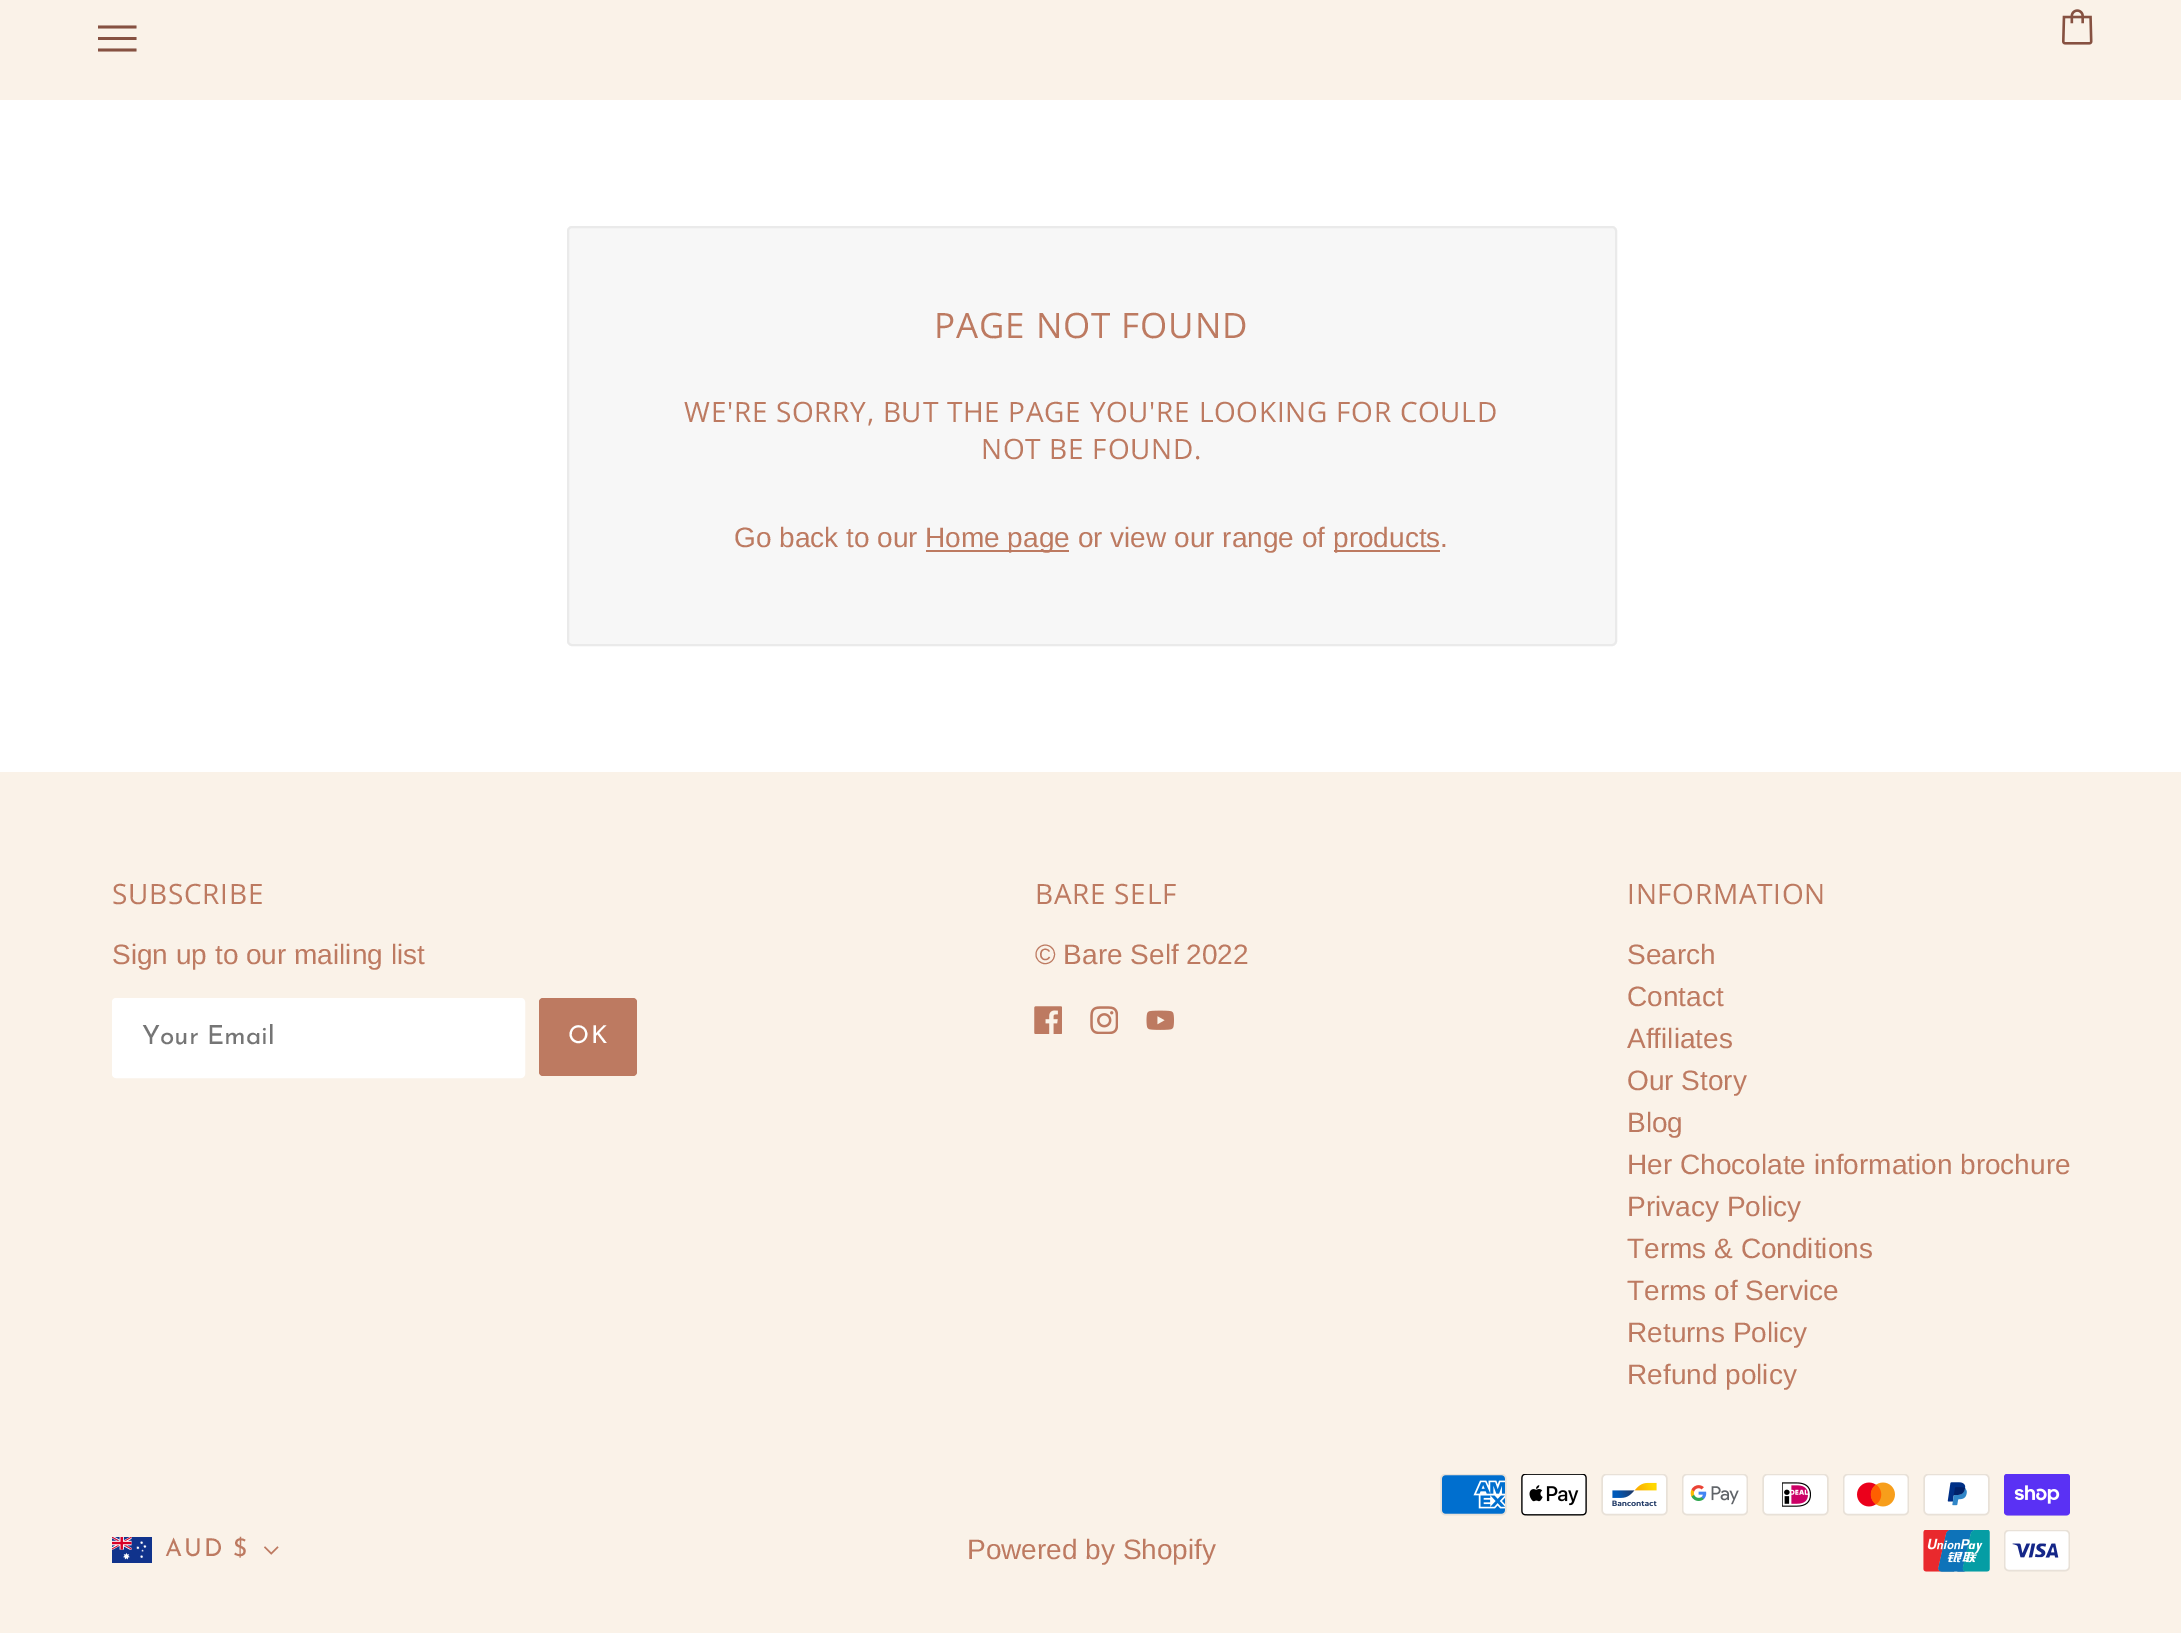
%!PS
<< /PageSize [2181 1633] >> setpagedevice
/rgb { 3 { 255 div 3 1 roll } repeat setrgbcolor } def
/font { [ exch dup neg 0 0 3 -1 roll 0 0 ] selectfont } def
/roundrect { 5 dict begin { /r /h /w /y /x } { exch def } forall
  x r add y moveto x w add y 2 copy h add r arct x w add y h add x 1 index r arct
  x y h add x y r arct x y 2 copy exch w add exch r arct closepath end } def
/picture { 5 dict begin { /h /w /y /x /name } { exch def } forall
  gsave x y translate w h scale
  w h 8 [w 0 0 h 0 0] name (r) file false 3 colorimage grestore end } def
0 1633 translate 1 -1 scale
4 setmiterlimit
255 255 255 rgb
0 0 2181 1633 rectfill
250 242 232 rgb
0 0 2181 100 rectfill
134 81 65 rgb
98 28.5 moveto 98 25.5 lineto 136.5 25.5 lineto 136.5 28.5 lineto closepath 98 40 moveto 98 37 lineto 136.5 37 lineto 136.5 40 lineto closepath 98 51.5 moveto 98 48.5 lineto 136.5 48.5 lineto 136.5 51.5 lineto closepath fill
(img/1.rgb) 2062 9 31 36 picture
247 247 247 rgb
568 227 1048 418 4 roundrect gsave fill grestore
234 234 234 rgb
2 setlinewidth
stroke
[
  [926 550 143 2 189 122 97]
  [1334 550 106 2 189 122 97]
  [0 772 2181 861 250 242 232]
] { aload pop rgb rectfill } forall
255 255 255 rgb
113 999 411 78 3 roundrect gsave fill grestore
stroke
189 122 97 rgb
539 998 98 78 4 roundrect fill
(img/2.rgb) 1034 1006 28 28 picture
(img/3.rgb) 1090 1006 28 28 picture
(img/4.rgb) 1146 1010 28 20 picture
(img/5.rgb) 112 1537 40 26 picture
(img/6.rgb) 264 1546 15 9 picture
(img/7.rgb) 1440 1474 67 42 picture
(img/8.rgb) 1521 1474 66 42 picture
(img/9.rgb) 1601 1474 67 42 picture
(img/10.rgb) 1682 1474 66 42 picture
(img/11.rgb) 1762 1474 67 42 picture
(img/12.rgb) 1843 1474 66 42 picture
(img/13.rgb) 1923 1474 67 42 picture
(img/14.rgb) 2004 1474 66 42 picture
(img/15.rgb) 1923 1530 67 42 picture
(img/16.rgb) 2004 1530 66 42 picture
/OpenSans-Regular 35 font
934 338 moveto 0.9 0 (PAGE NOT FOUND) ashow
/OpenSans-Regular 28 font
684 422 moveto 0.7 0 (WE'RE SORRY, BUT THE PAGE YOU'RE LOOKING FOR COULD) ashow
981 459 moveto 0.7 0 (NOT BE FOUND.) ashow
/Arimo-Regular 28 font
[
  [(Go back to our) 734 547]
  [(Home page or view our range of) 925 547]
  [(products.) 1333 547]
] { aload pop moveto show } forall
/OpenSans-Regular 28 font
112 904 moveto 0.7 0 (SUBSCRIBE) ashow
/Arimo-Regular 28 font
112 964 moveto (Sign up to our mailing list) show
gsave
142 1024 353 26 rectclip
/JosefinSans-Regular 26.25 font
117 117 117 rgb
142 1044 moveto (Your Email) show
grestore
/JosefinSans-Regular 24.5 font
255 255 255 rgb
568 1043 moveto 1.75 0 (OK) ashow
/OpenSans-Regular 28 font
189 122 97 rgb
1035 904 moveto 0.7 0 (BARE SELF) ashow
/Arimo-Regular 28 font
1035 964 moveto (© Bare Self 2022) show
/OpenSans-Regular 28 font
1627 904 moveto 0.7 0 (INFORMATION) ashow
/Arimo-Regular 28 font
[
  [(Search) 1627 964]
  [(Contact) 1627 1006]
  [(Affiliates) 1627 1048]
  [(Our Story) 1627 1090]
  [(Blog) 1627 1132]
  [(Her Chocolate information brochure) 1627 1174]
  [(Privacy Policy) 1627 1216]
  [(Terms & Conditions) 1627 1258]
  [(Terms of Service) 1627 1300]
  [(Returns Policy) 1627 1342]
  [(Refund policy) 1627 1384]
] { aload pop moveto show } forall
/JosefinSans-Regular 24.5 font
165 1556 moveto 1.75 0 (AUD $) ashow
/Arimo-Regular 28 font
967 1559 moveto (Powered by Shopify) show
showpage
